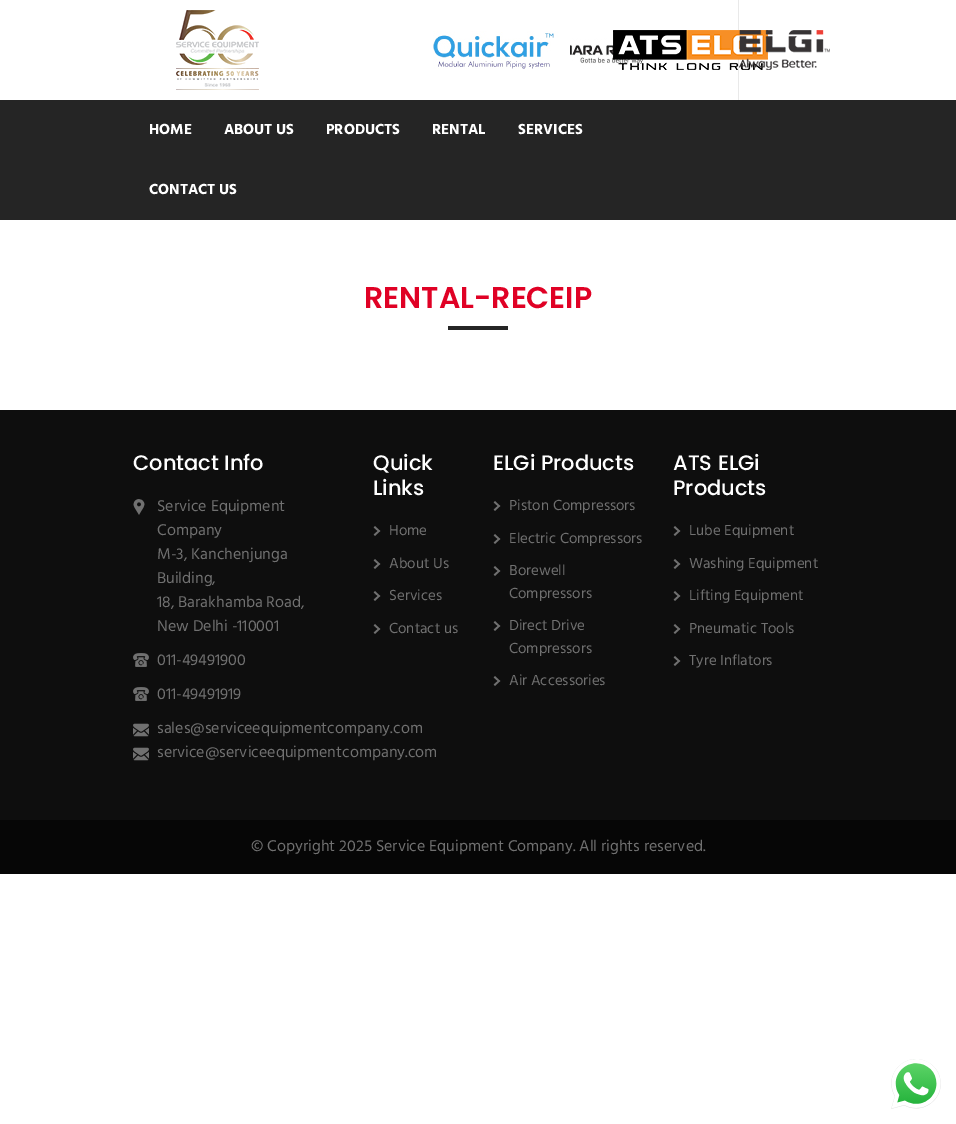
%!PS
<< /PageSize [956 1124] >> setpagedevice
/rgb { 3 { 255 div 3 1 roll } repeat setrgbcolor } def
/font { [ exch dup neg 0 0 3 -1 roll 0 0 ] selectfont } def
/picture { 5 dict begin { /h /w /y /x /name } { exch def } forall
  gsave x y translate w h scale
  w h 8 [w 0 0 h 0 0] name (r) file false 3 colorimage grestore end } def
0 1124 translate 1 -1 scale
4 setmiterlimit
255 255 255 rgb
0 0 956 1124 rectfill
(img/1.rgb) 176 10 83 80 picture
(img/2.rgb) 433 31 137 38 picture
(img/3.rgb) 570 31 73 38 picture
233 233 233 rgb
738 0 1 100 rectfill
(img/4.rgb) 613 30 155 40 picture
(img/5.rgb) 739 30 91 40 picture
[
  [0 100 956 120 37 37 37]
  [448 326 60 4 37 37 37]
  [0 410 956 410 14 14 14]
] { aload pop rgb rectfill } forall
(img/6.rgb) 133 499 12 16 picture
(img/7.rgb) 133 653 16 14 picture
(img/7.rgb) 133 687 16 14 picture
(img/8.rgb) 133 723 16 14 picture
(img/8.rgb) 133 747 16 14 picture
(img/9.rgb) 373 526 8 10 picture
(img/9.rgb) 373 559 8 10 picture
(img/9.rgb) 373 591 8 10 picture
(img/9.rgb) 373 624 8 10 picture
(img/9.rgb) 493 501 8 10 picture
(img/9.rgb) 493 534 8 10 picture
(img/9.rgb) 493 566 8 10 picture
(img/9.rgb) 493 621 8 10 picture
(img/9.rgb) 493 676 8 10 picture
(img/9.rgb) 673 526 8 10 picture
(img/9.rgb) 673 559 8 10 picture
(img/9.rgb) 673 591 8 10 picture
(img/9.rgb) 673 624 8 10 picture
(img/9.rgb) 673 656 8 10 picture
6 6 6 rgb
0 820 956 54 rectfill
(img/10.rgb) 891 1059 50 50 picture
/Hind-Bold 15 font
255 255 255 rgb
[
  [(HOME) 149 134]
  [(ABOUT US) 224 134]
  [(PRODUCTS) 326 134]
  [(RENTAL) 432 134]
  [(SERVICES) 518 134]
  [(CONTACT US) 149 194]
] { aload pop moveto show } forall
/Poppins-SemiBold 30 font
224 1 37 rgb
364 308 moveto (RENTAL-RECEIP) show
/Poppins-Medium 21 font
255 255 255 rgb
133 470 moveto (Contact Info) show
/Hind-Regular 16 font
112 112 112 rgb
[
  [(Service Equipment) 157 511]
  [(Company) 157 535]
  [(M-3, Kanchenjunga) 157 559]
  [(Building,) 157 583]
  [(18, Barakhamba Road,) 157 607]
  [(New Delhi -110001) 157 631]
  [(011-49491900) 157 665]
  [(011-49491919) 157 699]
  [(sales@serviceequipmentcompany.com) 157 733]
  [(service@serviceequipmentcompany.com) 157 757]
] { aload pop moveto show } forall
/Poppins-Medium 21 font
255 255 255 rgb
373 470 moveto (Quick) show
373 495 moveto (Links) show
/Hind-Regular 15 font
112 112 112 rgb
[
  [(Home) 389 535]
  [(About Us) 389 568]
  [(Services) 389 600]
  [(Contact us) 389 633]
] { aload pop moveto show } forall
/Poppins-Medium 21 font
255 255 255 rgb
493 470 moveto (ELGi Products) show
/Hind-Regular 15 font
112 112 112 rgb
[
  [(Piston Compressors) 509 510]
  [(Electric Compressors) 509 543]
  [(Borewell) 509 575]
  [(Compressors) 509 598]
  [(Direct Drive) 509 630]
  [(Compressors) 509 653]
  [(Air Accessories) 509 685]
] { aload pop moveto show } forall
/Poppins-Medium 21 font
255 255 255 rgb
673 470 moveto (ATS ELGi) show
673 495 moveto (Products) show
/Hind-Regular 15 font
112 112 112 rgb
[
  [(Lube Equipment) 689 535]
  [(Washing Equipment) 689 568]
  [(Lifting Equipment) 689 600]
  [(Pneumatic Tools) 689 633]
  [(Tyre Inflators) 689 665]
] { aload pop moveto show } forall
/Hind-Regular 16 font
251 851 moveto (© Copyright 2025 Service Equipment Company. All rights reserved.) show
showpage
